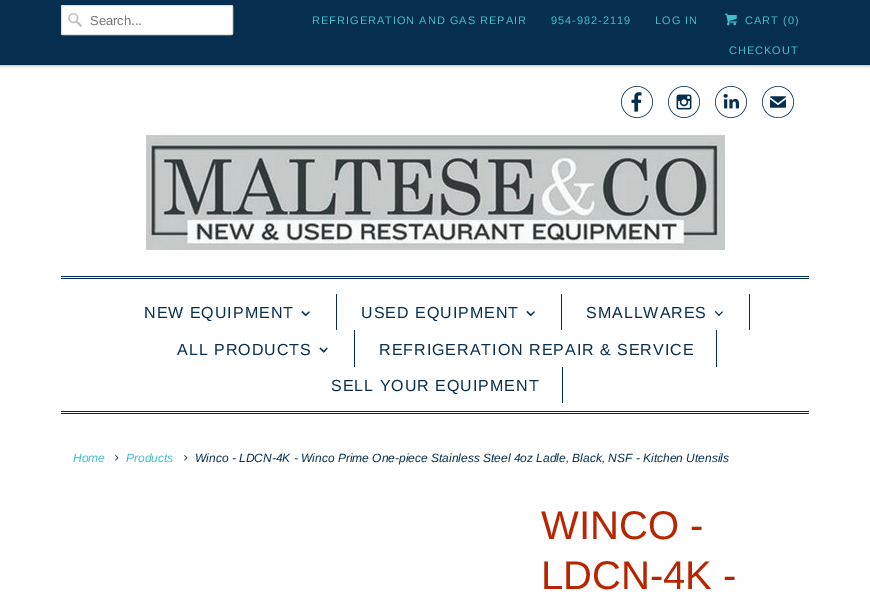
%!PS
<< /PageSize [870 602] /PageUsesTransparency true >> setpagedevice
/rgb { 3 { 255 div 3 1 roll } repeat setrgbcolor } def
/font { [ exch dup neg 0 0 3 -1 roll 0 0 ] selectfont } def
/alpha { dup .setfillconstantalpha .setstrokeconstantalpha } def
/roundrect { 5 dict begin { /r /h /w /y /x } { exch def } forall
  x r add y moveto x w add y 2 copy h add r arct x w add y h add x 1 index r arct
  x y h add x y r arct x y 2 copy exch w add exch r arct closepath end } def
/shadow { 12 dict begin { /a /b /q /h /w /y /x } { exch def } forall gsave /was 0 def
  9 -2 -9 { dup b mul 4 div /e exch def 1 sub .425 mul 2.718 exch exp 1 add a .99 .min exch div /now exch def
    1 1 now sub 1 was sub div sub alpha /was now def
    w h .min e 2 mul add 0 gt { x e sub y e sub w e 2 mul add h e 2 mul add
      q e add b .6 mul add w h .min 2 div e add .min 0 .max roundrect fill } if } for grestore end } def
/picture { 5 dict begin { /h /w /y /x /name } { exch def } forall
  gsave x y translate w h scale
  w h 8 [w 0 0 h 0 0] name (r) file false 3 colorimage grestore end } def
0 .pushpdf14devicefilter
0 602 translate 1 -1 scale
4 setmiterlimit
255 255 255 rgb
0 0 870 602 rectfill
0 0 0 rgb
0 1 870 65 0 1.5 0.25 shadow
6 47 79 rgb
0 0 870 64 rectfill
5 42 71 rgb
0 64 870 1 rectfill
255 255 255 rgb
61 5 172 30 2 roundrect fill
(img/1.rgb) 68 13 14 14 picture
223 223 223 rgb
61.5 5.5 171 29 1.5 roundrect stroke
(img/2.rgb) 725 13 12 13 picture
(img/3.rgb) 621 86 32 32 picture
(img/4.rgb) 668 86 32 32 picture
(img/5.rgb) 715 86 32 32 picture
(img/6.rgb) 146 134 579 117 picture
[
  [61 276 748 1 6 47 79]
  [61 278 748 1 6 47 79]
  [61 411 748 1 6 47 79]
  [61 413 748 1 6 47 79]
  [336 294 1 36 6 47 79]
] { aload pop rgb rectfill } forall
309 311.5 moveto 310 312 lineto 306 316 lineto 305 315 lineto closepath fill
302.5 311 moveto 306.5 315 lineto 305.5 316 lineto 301.5 312 lineto closepath fill
561 294 1 36 rectfill
534 311.5 moveto 535 312 lineto 531 316 lineto 530 315 lineto closepath fill
527.5 311 moveto 531.5 315 lineto 530.5 316 lineto 526.5 312 lineto closepath fill
749 294 1 36 rectfill
722 311.5 moveto 723 312 lineto 719 316 lineto 718.5 315 lineto closepath fill
715.5 311 moveto 719.5 315 lineto 719 316 lineto 715 312 lineto closepath fill
354 330 1 37 rectfill
327 347.5 moveto 327.5 348.5 lineto 324 352.5 lineto 323 351.5 lineto closepath fill
320.5 347.5 moveto 324.5 351.5 lineto 323.5 352.5 lineto 319.5 348.5 lineto closepath fill
716 330 1 37 rectfill
562 367 1 36 rectfill
(img/7.rgb) 115 455 4 6 picture
(img/7.rgb) 184 455 4 6 picture
/LiberationSans-Regular 13 font
117 117 117 rgb
90 25 moveto (Search...) show
/LiberationSans-Regular 11 font
64 190 205 rgb
312 24 moveto 1 0 (REFRIGERATION AND GAS REPAIR) ashow
551 24 moveto 1 0 (954-982-2119) ashow
655 24 moveto 1 0 (LOG IN) ashow
745 24 moveto 1 0 (CART \(0\)) ashow
729 54 moveto 1 0 (CHECKOUT) ashow
/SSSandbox-Regular 32 font
6 47 79 rgb
762 118 moveto (✉) show
/LiberationSans-Regular 16 font
144 318 moveto 1 0 (NEW EQUIPMENT) ashow
361 318 moveto 1 0 (USED EQUIPMENT) ashow
586 318 moveto 1 0 (SMALLWARES) ashow
177 355 moveto 1 0 (ALL PRODUCTS) ashow
379 355 moveto 1 0 (REFRIGERATION REPAIR & SERVICE) ashow
331 391 moveto 1 0 (SELL YOUR EQUIPMENT) ashow
/LiberationSans-Italic 12 font
64 190 205 rgb
73 462 moveto (Home) show
126 462 moveto (Products) show
6 47 79 rgb
195 462 moveto (Winco - LDCN-4K - Winco Prime One-piece Stainless Steel 4oz Ladle, Black, NSF - Kitchen Utensils) show
/LiberationSans-Regular 40 font
184 38 1 rgb
541 539 moveto (WINCO -) show
541 589 moveto (LDCN-4K -) show
.poppdf14devicefilter showpage
